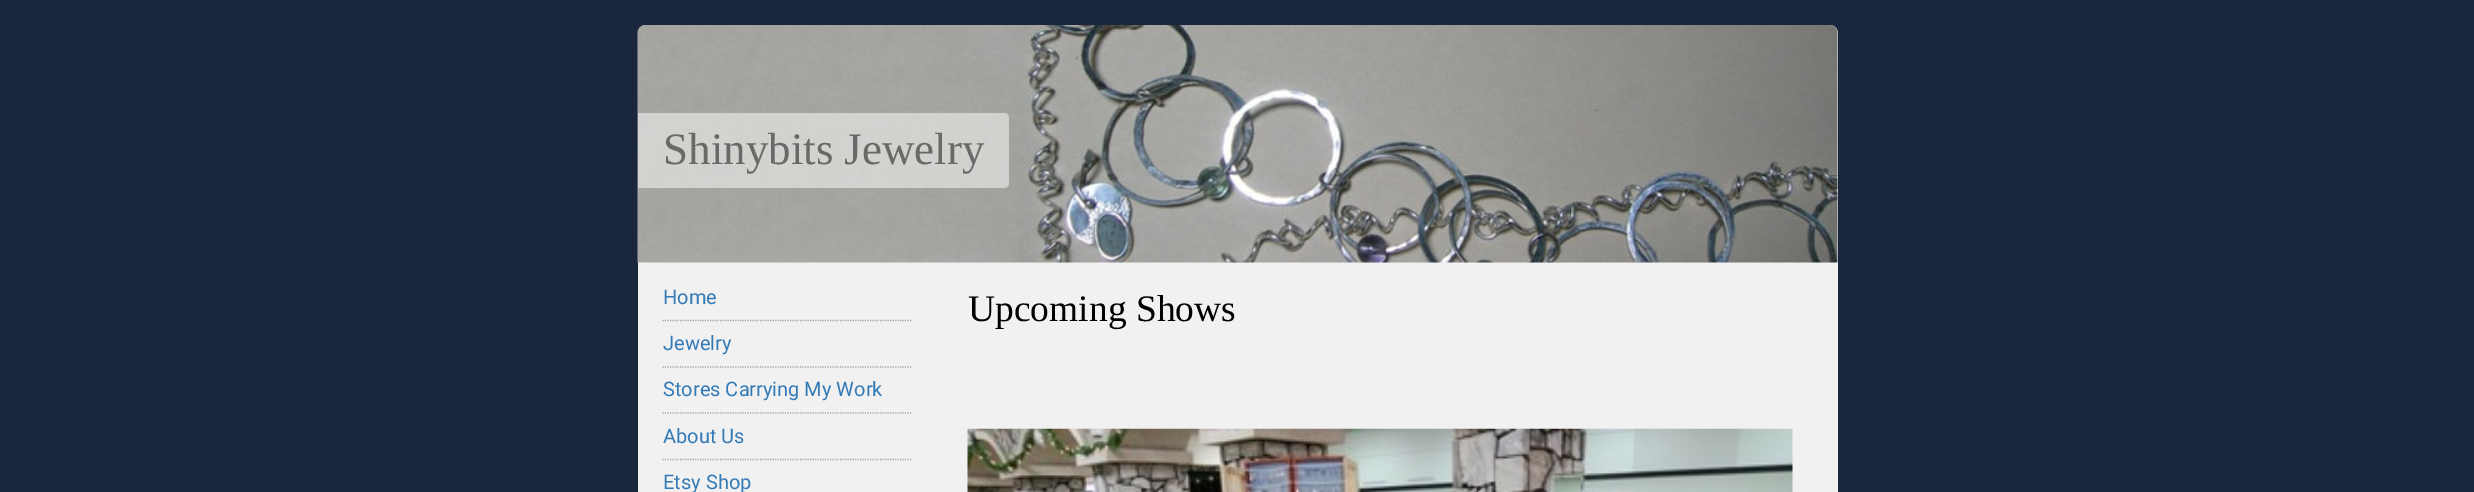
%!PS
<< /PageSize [2474 492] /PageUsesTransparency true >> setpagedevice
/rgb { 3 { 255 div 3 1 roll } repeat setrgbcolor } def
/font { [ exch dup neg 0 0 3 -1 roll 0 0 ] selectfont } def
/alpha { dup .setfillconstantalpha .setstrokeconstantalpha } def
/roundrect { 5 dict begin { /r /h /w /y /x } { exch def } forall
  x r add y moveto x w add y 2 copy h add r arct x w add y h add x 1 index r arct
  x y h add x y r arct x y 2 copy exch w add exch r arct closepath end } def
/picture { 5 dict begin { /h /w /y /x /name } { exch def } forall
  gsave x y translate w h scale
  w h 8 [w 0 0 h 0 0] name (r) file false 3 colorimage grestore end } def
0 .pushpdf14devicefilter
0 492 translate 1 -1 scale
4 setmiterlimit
25 38 60 rgb
0 0 2474 492 rectfill
241 241 241 rgb
638 25 1200 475 8 roundrect fill
(img/1.rgb) 637 25 1201 238 picture
0.5 alpha
255 255 255 rgb
638 113 moveto 1004 113 lineto 1007 113 1009 115 1009 118 curveto 1009 183 lineto 1009 186 1007 188 1004 188 curveto 638 188 lineto closepath fill
1 alpha
164 165 160 rgb
1.2 setlinewidth
[1.25 1.25] 0 setdash
662.5 320.5 moveto 912.5 320.5 lineto stroke
662.5 367 moveto 912.5 367 lineto stroke
662.5 413 moveto 912.5 413 lineto stroke
662.5 459.5 moveto 912.5 459.5 lineto stroke
(img/2.rgb) 967 428 826 64 picture
/LiberationSerif-Regular 45 font
105 105 104 rgb
663 164 moveto (Shinybits Jewelry) show
/Roboto-Regular 20 font
51 122 183 rgb
[
  [(Home) 663 304]
  [(Jewelry) 663 350]
  [(Stores Carrying My Work) 663 396]
  [(About Us) 663 443]
  [(Etsy Shop) 663 489]
] { aload pop moveto show } forall
/LiberationSerif-Regular 37.5 font
0 0 0 rgb
968 321 moveto (Upcoming Shows) show
.poppdf14devicefilter showpage
